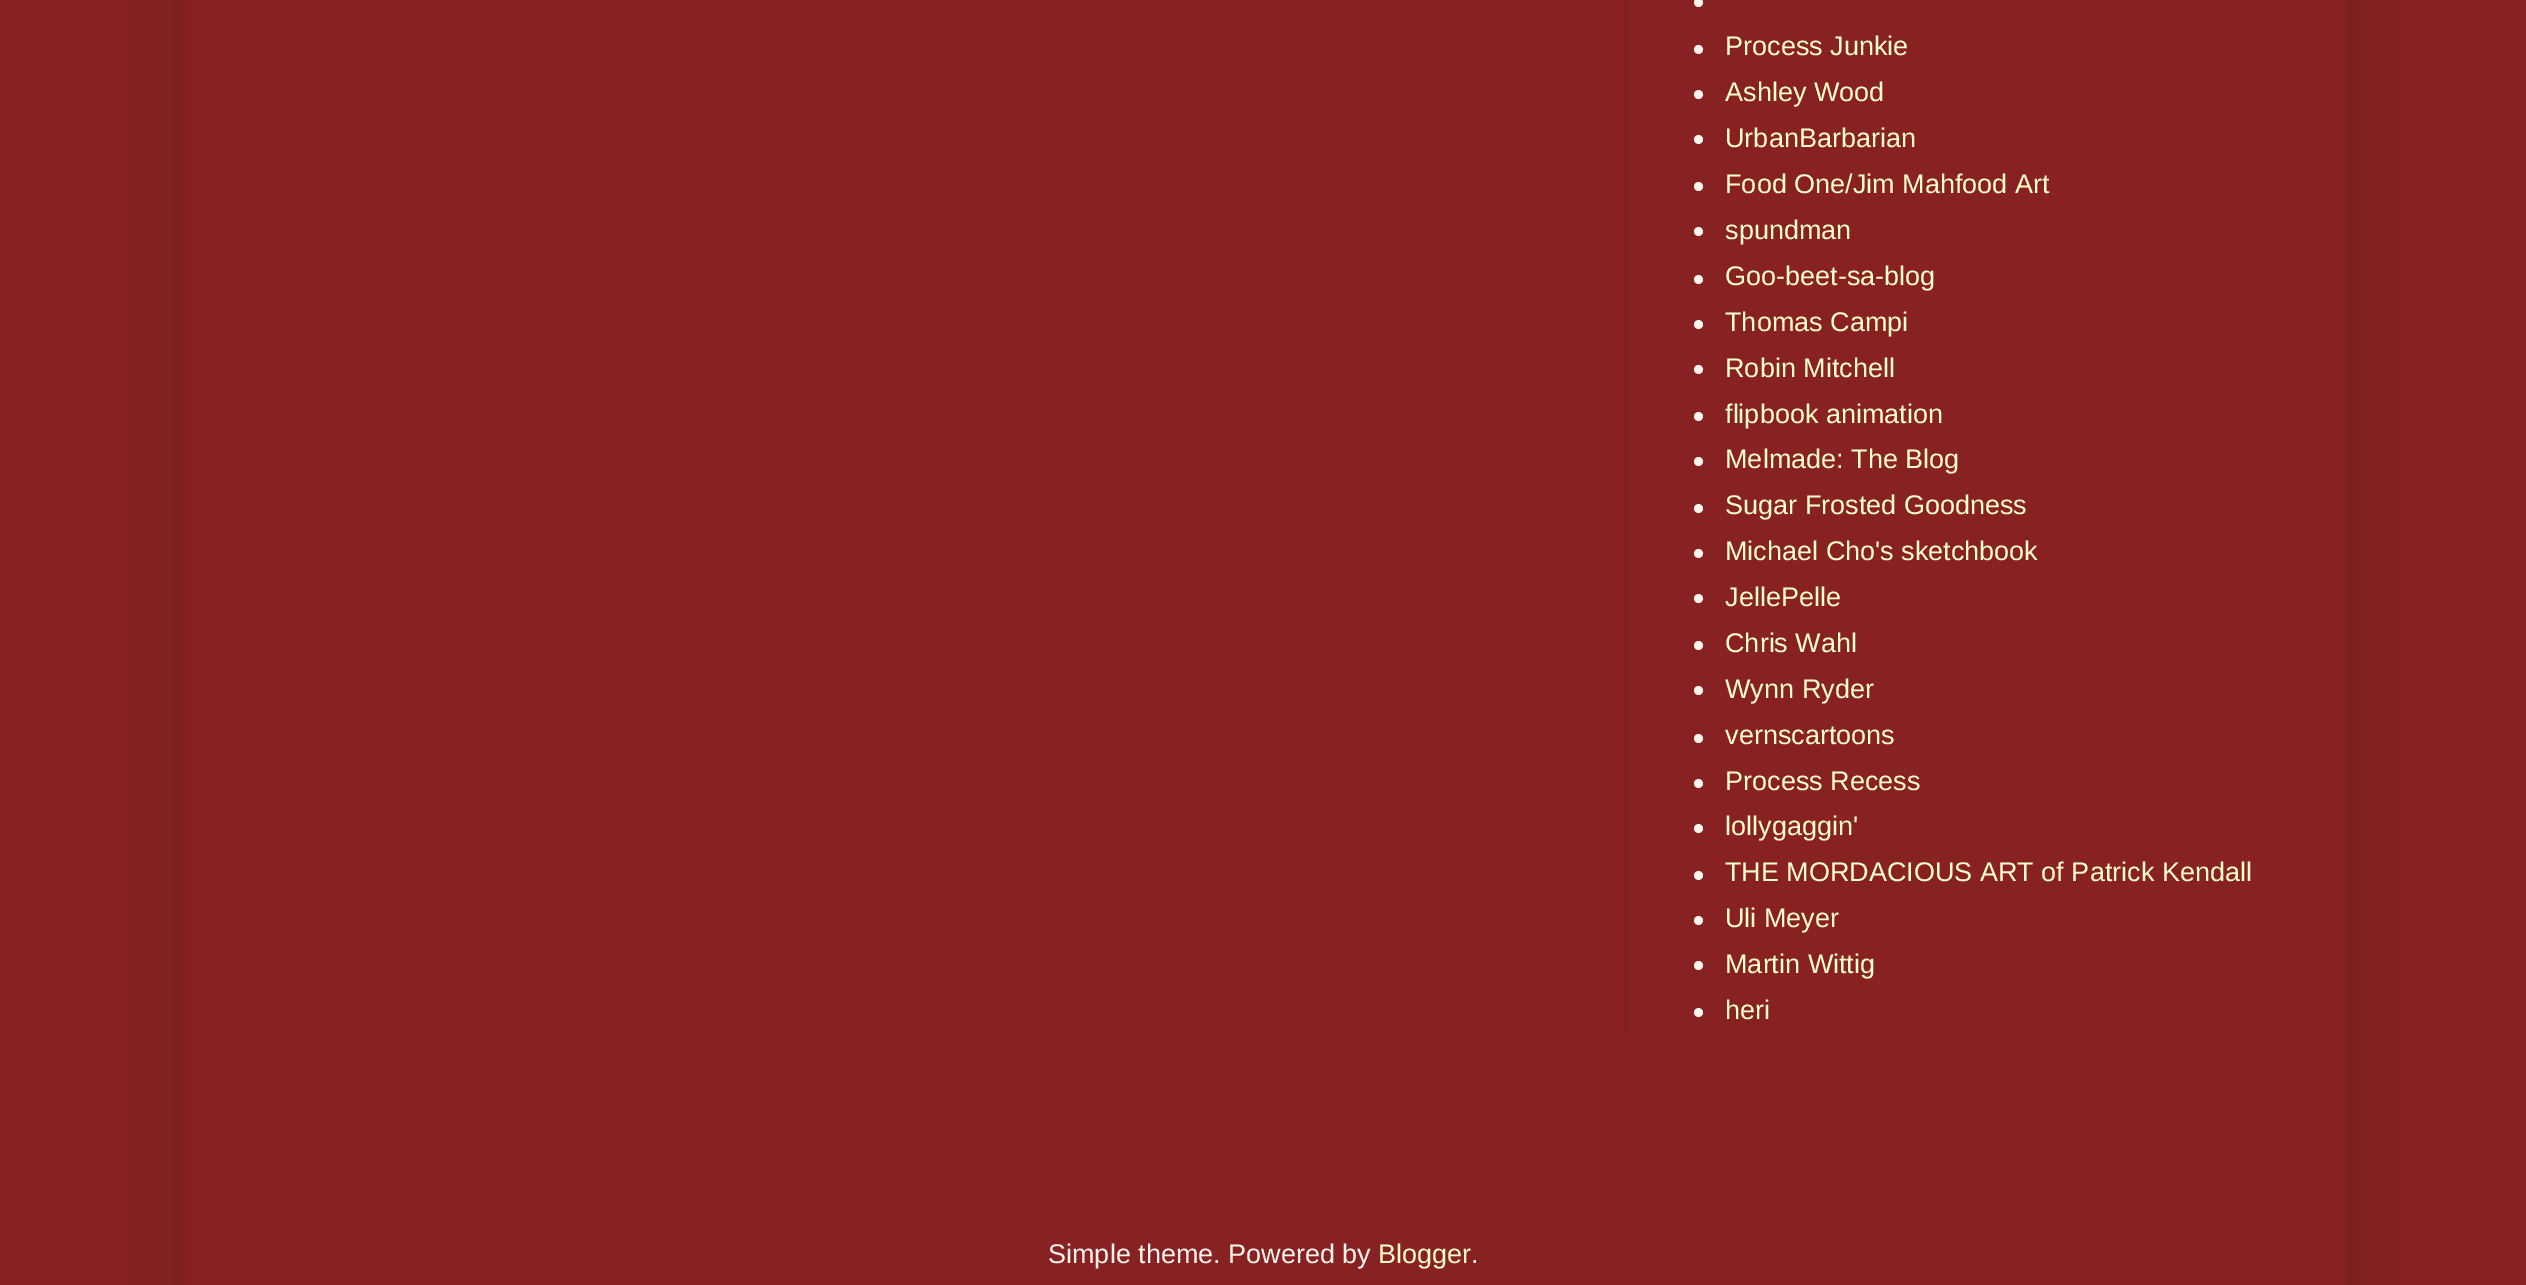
%!PS
<< /PageSize [2526 1285] /PageUsesTransparency true >> setpagedevice
/rgb { 3 { 255 div 3 1 roll } repeat setrgbcolor } def
/font { [ exch dup neg 0 0 3 -1 roll 0 0 ] selectfont } def
/alpha { dup .setfillconstantalpha .setstrokeconstantalpha } def
/circle { newpath 0 360 arc closepath } def
/roundrect { 5 dict begin { /r /h /w /y /x } { exch def } forall
  x r add y moveto x w add y 2 copy h add r arct x w add y h add x 1 index r arct
  x y h add x y r arct x y 2 copy exch w add exch r arct closepath end } def
/shadow { 12 dict begin { /a /b /q /h /w /y /x } { exch def } forall gsave /was 0 def
  9 -2 -9 { dup b mul 4 div /e exch def 1 sub .425 mul 2.718 exch exp 1 add a .99 .min exch div /now exch def
    1 1 now sub 1 was sub div sub alpha /was now def
    w h .min e 2 mul add 0 gt { x e sub y e sub w e 2 mul add h e 2 mul add
      q e add b .6 mul add w h .min 2 div e add .min 0 .max roundrect fill } if } for grestore end } def
0 .pushpdf14devicefilter
0 1285 translate 1 -1 scale
4 setmiterlimit
136 34 34 rgb
0 0 2526 1285 rectfill
0 0 0 rgb
185 -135 2160 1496 0 45 0.15 shadow
136 34 34 rgb
185 0 2160 1285 rectfill
119 34 34 rgb
1625 0 2 1033 rectfill
255 245 238 rgb
1698.5 2.5 4.5 circle fill
1698.5 49.5 4.5 circle fill
1698.5 94.5 4.5 circle fill
1698.5 139.5 4.5 circle fill
1698.5 186.5 4.5 circle fill
1698.5 231.5 4.5 circle fill
1698.5 279.5 4.5 circle fill
1698.5 324.5 4.5 circle fill
1698.5 369.5 4.5 circle fill
1698.5 416.5 4.5 circle fill
1698.5 461.5 4.5 circle fill
1698.5 508.5 4.5 circle fill
1698.5 553.5 4.5 circle fill
1698.5 598.5 4.5 circle fill
1698.5 645.5 4.5 circle fill
1698.5 690.5 4.5 circle fill
1698.5 738.5 4.5 circle fill
1698.5 783.5 4.5 circle fill
1698.5 828.5 4.5 circle fill
1698.5 875.5 4.5 circle fill
1698.5 920.5 4.5 circle fill
1698.5 965.5 4.5 circle fill
1698.5 1012.5 4.5 circle fill
/LiberationSans-Regular 27 font
255 255 204 rgb
[
  [(Process Junkie) 1725 55]
  [(Ashley Wood) 1725 101]
  [(UrbanBarbarian) 1725 147]
  [(Food One/Jim Mahfood Art) 1725 193]
  [(spundman) 1725 239]
  [(Goo-beet-sa-blog) 1725 285]
  [(Thomas Campi) 1725 331]
  [(Robin Mitchell) 1725 377]
  [(flipbook animation) 1725 423]
  [(Melmade: The Blog) 1725 468]
  [(Sugar Frosted Goodness) 1725 514]
  [(Michael Cho's sketchbook) 1725 560]
  [(JellePelle) 1725 606]
  [(Chris Wahl) 1725 652]
  [(Wynn Ryder) 1725 698]
  [(vernscartoons) 1725 744]
  [(Process Recess) 1725 790]
  [(lollygaggin') 1725 835]
  [(THE MORDACIOUS ART of Patrick Kendall) 1725 881]
  [(Uli Meyer) 1725 927]
  [(Martin Wittig) 1725 973]
  [(heri) 1725 1019]
] { aload pop moveto show } forall
255 245 238 rgb
1048 1263 moveto (Simple theme. Powered by) show
255 255 204 rgb
1378 1263 moveto (Blogger) show
255 245 238 rgb
1471 1263 moveto (.) show
.poppdf14devicefilter showpage
